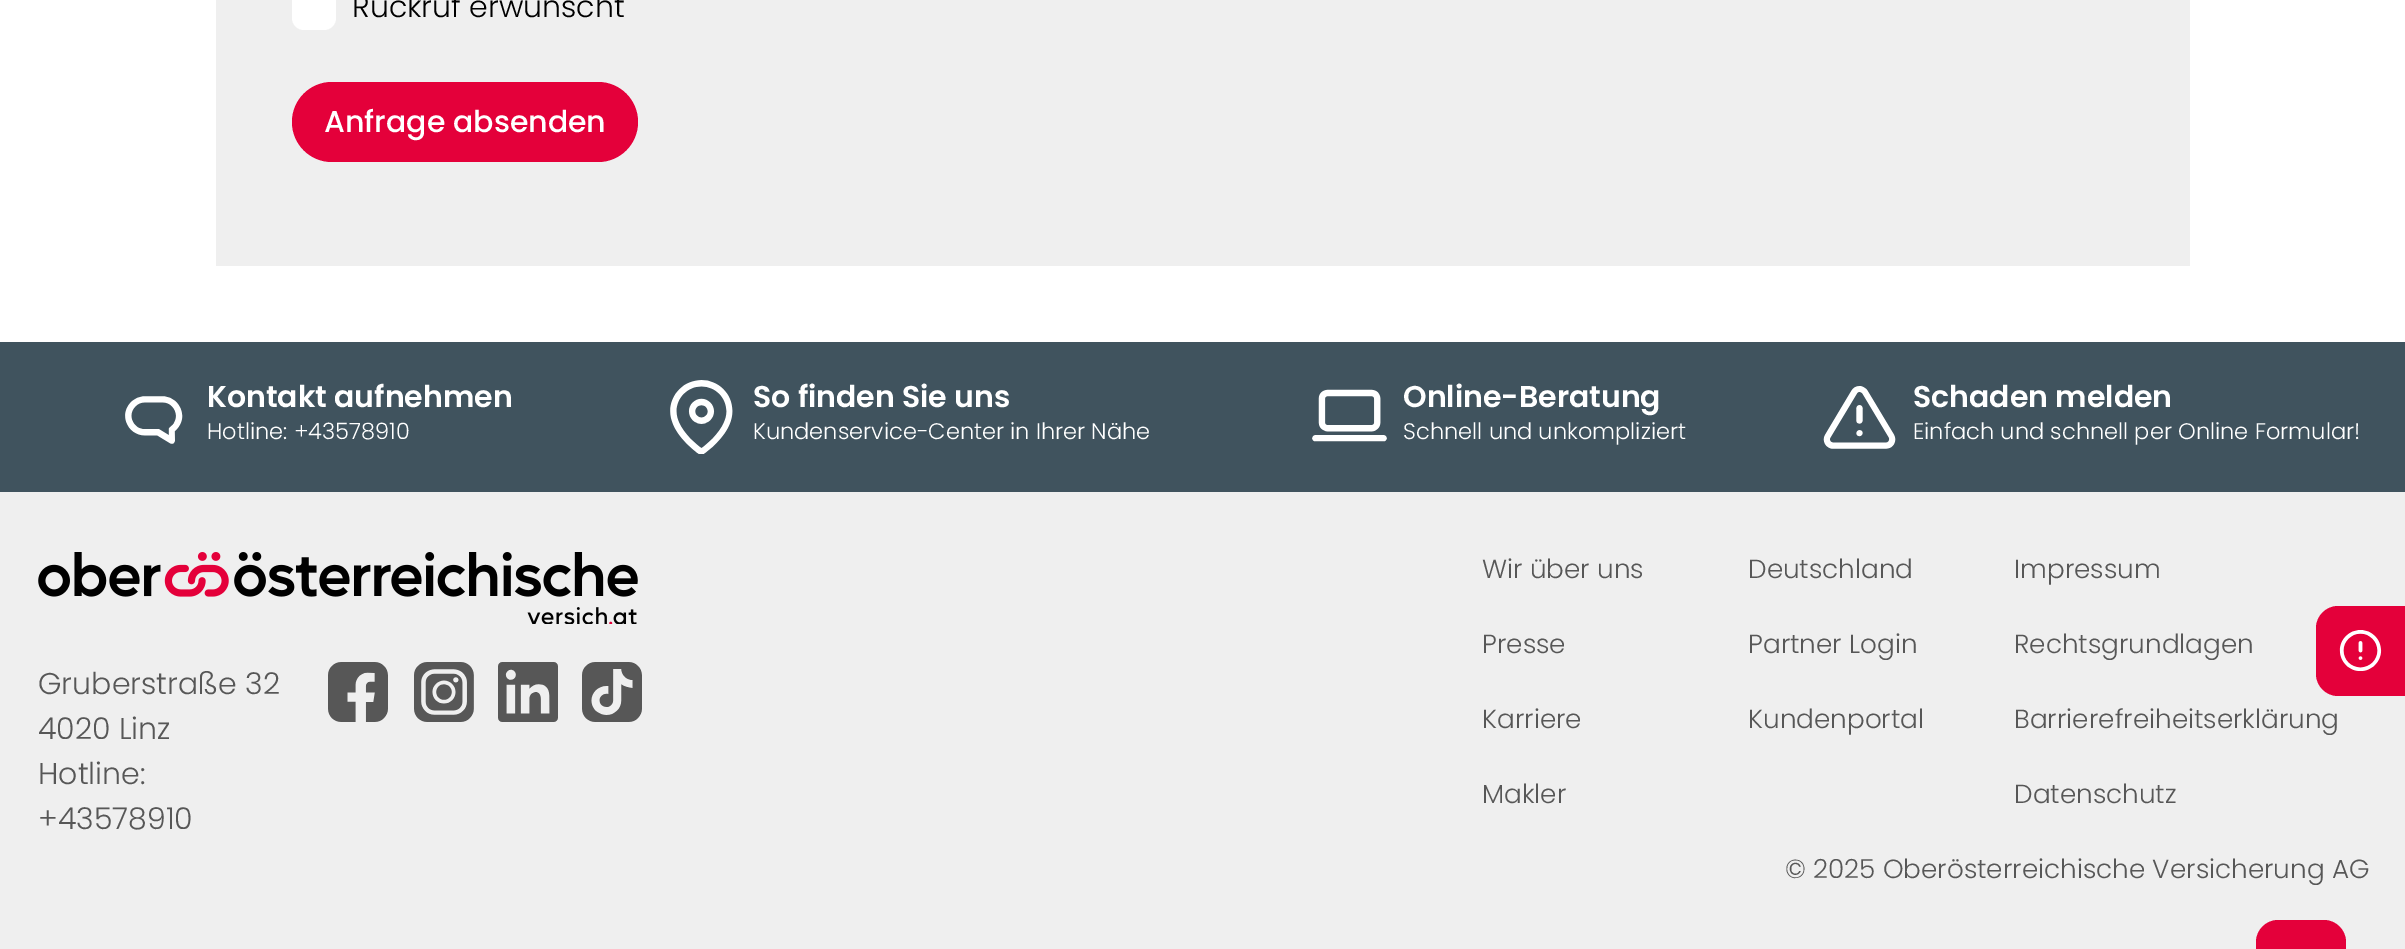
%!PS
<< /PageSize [2405 949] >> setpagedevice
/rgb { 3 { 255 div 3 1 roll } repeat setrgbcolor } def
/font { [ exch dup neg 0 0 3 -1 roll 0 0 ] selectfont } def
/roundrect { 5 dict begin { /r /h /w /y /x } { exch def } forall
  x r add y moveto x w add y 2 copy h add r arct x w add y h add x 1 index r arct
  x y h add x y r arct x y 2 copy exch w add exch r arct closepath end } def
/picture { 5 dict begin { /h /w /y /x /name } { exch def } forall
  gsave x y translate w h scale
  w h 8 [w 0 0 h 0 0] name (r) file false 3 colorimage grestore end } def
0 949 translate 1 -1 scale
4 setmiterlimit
255 255 255 rgb
0 0 2405 949 rectfill
239 239 239 rgb
216 0 1974 266 rectfill
255 255 255 rgb
292 -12 44 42 12 roundrect fill
228 0 58 rgb
292 82 346 80 40 roundrect fill
64 83 94 rgb
0 342 2405 150 rectfill
(img/1.rgb) 125 396 58 48 picture
(img/2.rgb) 670 380 63 74 picture
(img/3.rgb) 1312 389 75 53 picture
(img/4.rgb) 1823 386 73 63 picture
239 239 239 rgb
0 492 2405 457 rectfill
(img/5.rgb) 38 552 600 72 picture
(img/6.rgb) 328 662 60 60 picture
(img/7.rgb) 414 662 60 60 picture
(img/8.rgb) 498 662 60 60 picture
(img/9.rgb) 582 662 60 60 picture
228 0 58 rgb
2338 606 moveto 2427 606 lineto 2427 696 lineto 2338 696 lineto 2326 696 2316 686 2316 674 curveto 2316 628 lineto 2316 616 2326 606 2338 606 curveto closepath fill
(img/10.rgb) 2339 630 43 41 picture
2278 920 moveto 2324 920 lineto 2336 920 2346 930 2346 942 curveto 2346 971 lineto 2256 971 lineto 2256 942 lineto 2256 930 2266 920 2278 920 curveto closepath fill
/Poppins-Light 30 font
0 0 0 rgb
352 17 moveto (Rückruf erwünscht) show
/Poppins-Medium 30 font
255 255 255 rgb
324 132 moveto (Anfrage absenden) show
/Poppins-SemiBold 30 font
207 407 moveto (Kontakt aufnehmen) show
/Poppins-Light 22.5 font
207 439 moveto (Hotline: +43578910) show
/Poppins-SemiBold 30 font
753 407 moveto (So finden Sie uns) show
/Poppins-Light 22.5 font
753 439 moveto (Kundenservice-Center in Ihrer Nähe) show
/Poppins-SemiBold 30 font
1403 407 moveto (Online-Beratung) show
/Poppins-Light 22.5 font
1403 439 moveto (Schnell und unkompliziert) show
/Poppins-SemiBold 30 font
1913 407 moveto (Schaden melden) show
/Poppins-Light 22.5 font
1913 439 moveto (Einfach und schnell per Online Formular!) show
/Poppins-Light 30 font
87 87 87 rgb
[
  [(Gruberstraße 32) 38 694]
  [(4020 Linz) 38 739]
  [(Hotline:) 38 784]
  [(+43578910) 38 829]
] { aload pop moveto show } forall
/Poppins-Light 26.25 font
[
  [(Wir über uns) 1482 578]
  [(Deutschland) 1748 578]
  [(Presse) 1482 653]
  [(Partner Login) 1748 653]
  [(Karriere) 1482 728]
  [(Kundenportal) 1748 728]
  [(Makler) 1482 803]
  [(Impressum) 2014 578]
  [(Rechtsgrundlagen) 2014 653]
  [(Barrierefreiheitserklärung) 2014 728]
  [(Datenschutz) 2014 803]
  [(© 2025 Oberösterreichische Versicherung AG) 1785 878]
] { aload pop moveto show } forall
showpage
